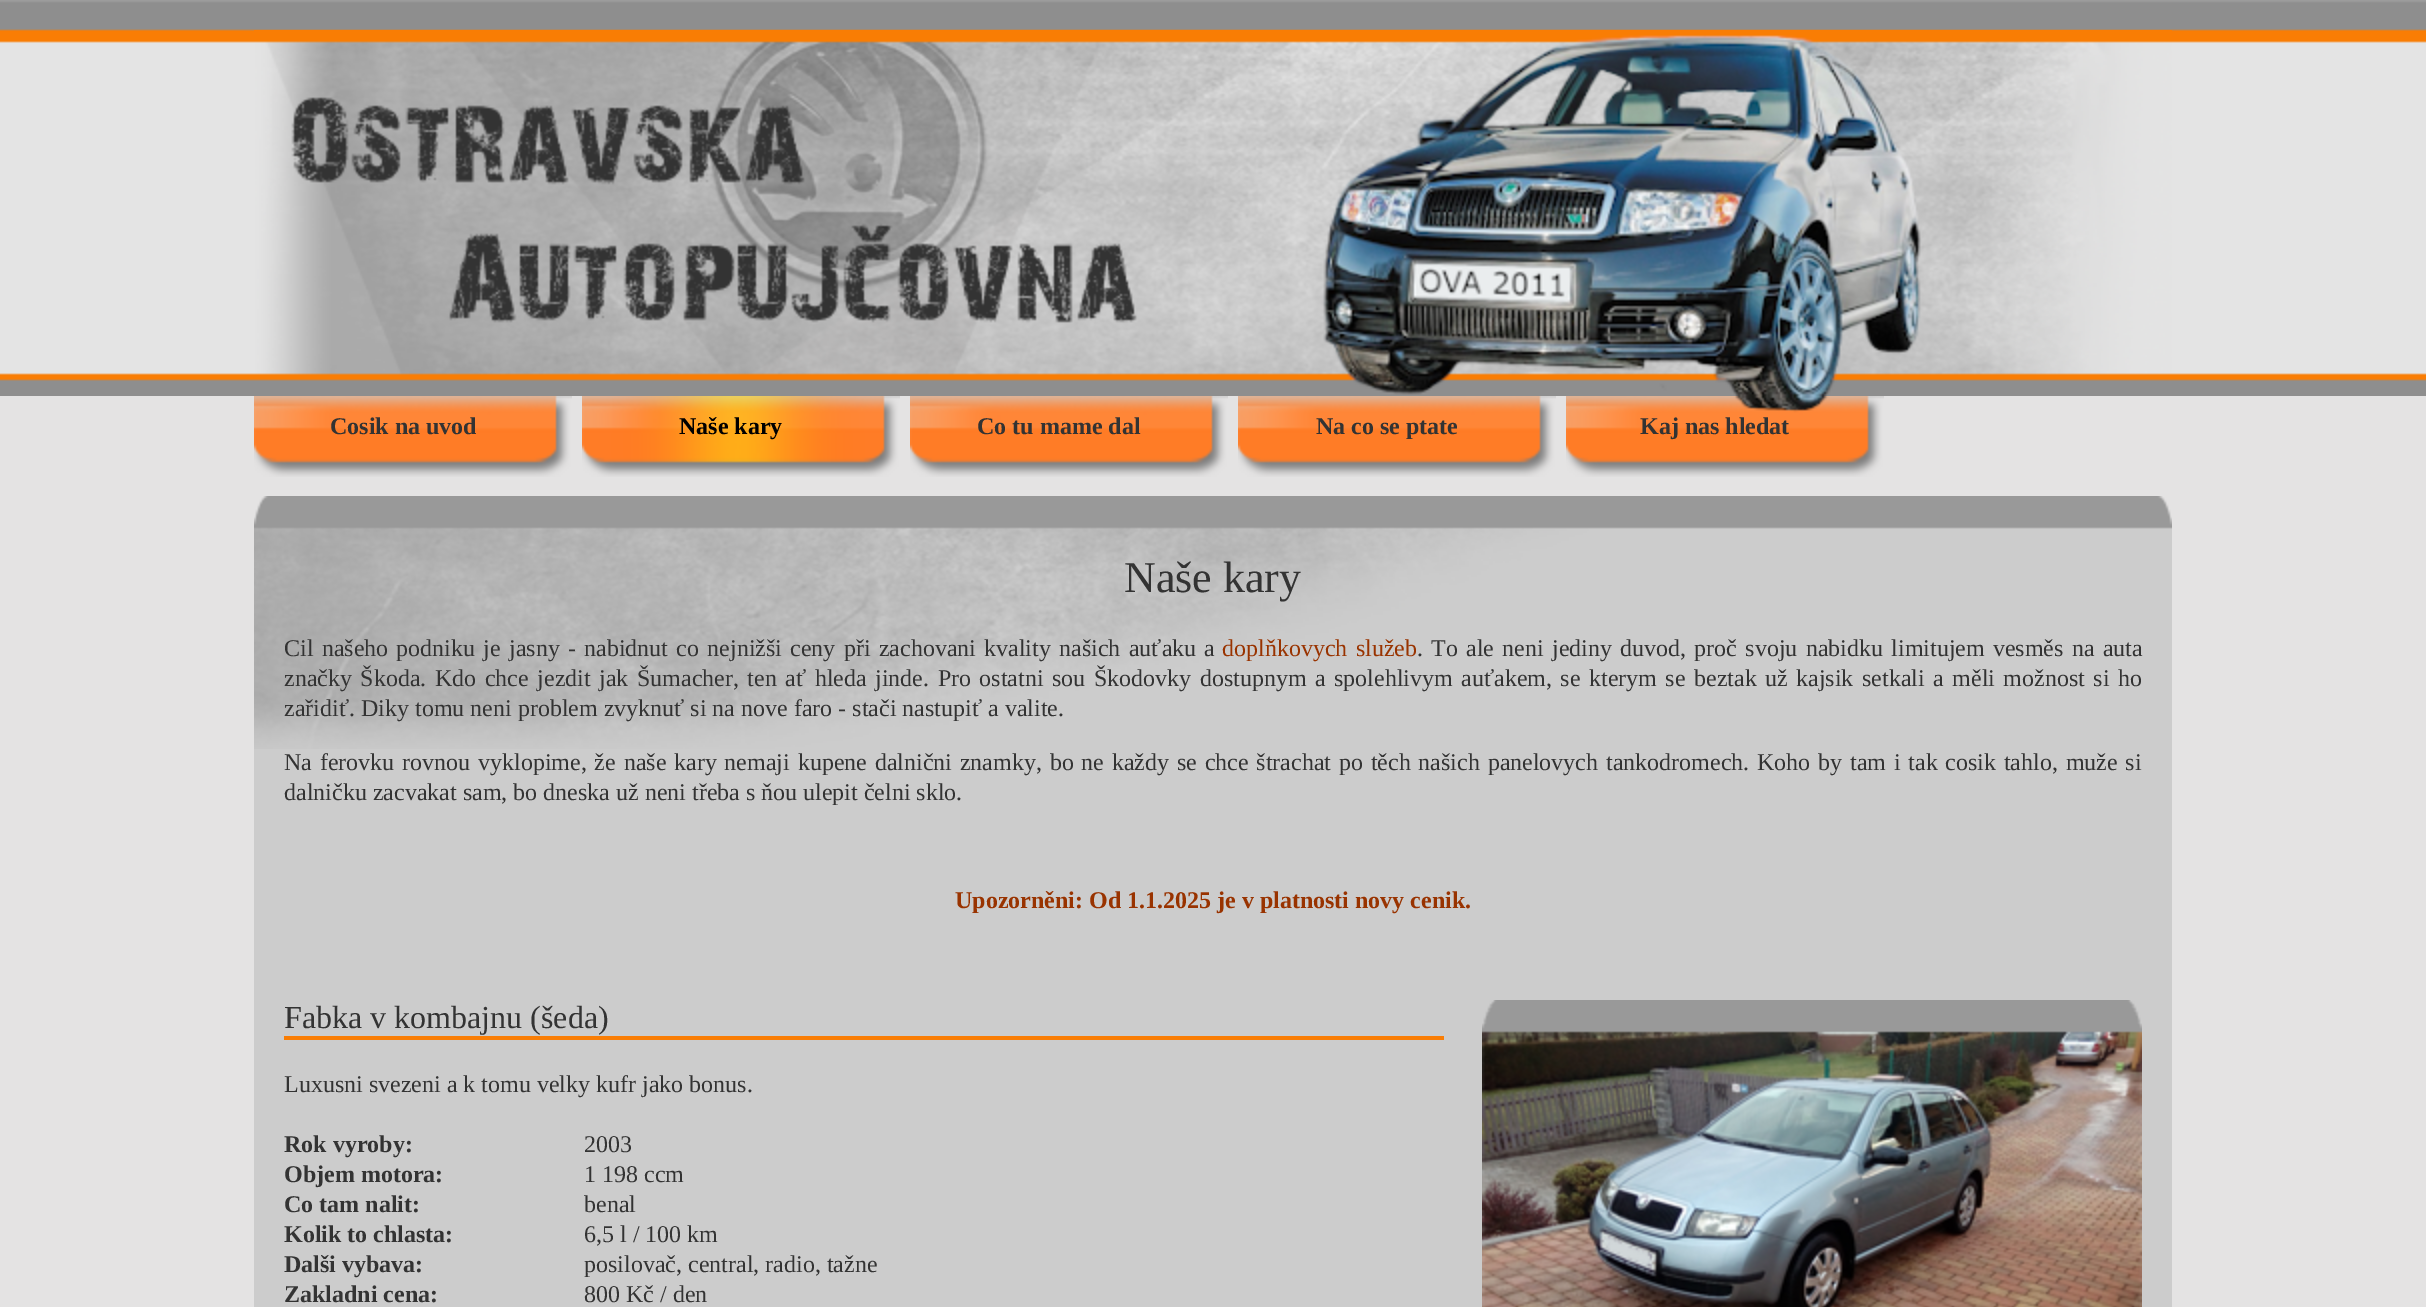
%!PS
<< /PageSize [2426 1307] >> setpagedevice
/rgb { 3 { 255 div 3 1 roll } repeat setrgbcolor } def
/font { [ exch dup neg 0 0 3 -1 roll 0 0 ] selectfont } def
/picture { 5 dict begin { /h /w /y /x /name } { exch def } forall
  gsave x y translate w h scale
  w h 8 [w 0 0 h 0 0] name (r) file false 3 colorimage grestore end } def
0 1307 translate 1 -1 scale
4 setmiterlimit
228 227 227 rgb
0 0 2426 1307 rectfill
(img/1.rgb) 0 0 2426 396 picture
(img/2.rgb) 254 30 1918 366 picture
(img/3.rgb) 254 396 318 81 picture
(img/4.rgb) 582 396 318 81 picture
(img/3.rgb) 910 396 318 81 picture
(img/3.rgb) 1238 396 318 81 picture
(img/5.rgb) 1566 396 318 81 picture
204 204 204 rgb
254 749 1918 558 rectfill
(img/6.rgb) 254 496 1918 253 picture
249 125 4 rgb
284 1036 1160 4 rectfill
(img/7.rgb) 1482 1000 660 307 picture
/LiberationSerif-Bold 24 font
51 51 51 rgb
330 434 moveto (Cosik na uvod) show
0 0 0 rgb
679 434 moveto (Naše kary) show
51 51 51 rgb
[
  [(Co tu mame dal) 977 434]
  [(Na co se ptate) 1316 434]
  [(Kaj nas hledat) 1640 434]
] { aload pop moveto show } forall
/LiberationSerif-Regular 44 font
1124 592 moveto (Naše kary) show
/LiberationSerif-Regular 24 font
284 656 moveto 2.25 0 32 (Cil našeho podniku je jasny - nabidnut co nejnižši ceny při zachovani kvality našich auťaku a) widthshow
153 51 0 rgb
1222 656 moveto 2.25 0 32 (doplňkovych služeb) widthshow
51 51 51 rgb
1417 656 moveto 2.25 0 32 (. To ale neni jediny duvod, proč svoju nabidku limitujem vesměs na auta) widthshow
284 686 moveto 2.5 0 32 (značky Škoda. Kdo chce jezdit jak Šumacher, ten ať hleda jinde. Pro ostatni sou Škodovky dostupnym a spolehlivym auťakem, se kterym se beztak už kajsik setkali a měli možnost si ho) widthshow
284 716 moveto (zařidiť. Diky tomu neni problem zvyknuť si na nove faro - stači nastupiť a valite.) show
284 770 moveto 1.8 0 32 (Na ferovku rovnou vyklopime, že naše kary nemaji kupene dalnični znamky, bo ne každy se chce štrachat po těch našich panelovych tankodromech. Koho by tam i tak cosik tahlo, muže si) widthshow
284 800 moveto (dalničku zacvakat sam, bo dneska už neni třeba s ňou ulepit čelni sklo.) show
/LiberationSerif-Bold 24 font
153 51 0 rgb
955 908 moveto (Upozorněni: Od 1.1.2025 je v platnosti novy cenik.) show
/LiberationSerif-Regular 32 font
51 51 51 rgb
284 1028 moveto (Fabka v kombajnu \(šeda\)) show
/LiberationSerif-Regular 24 font
284 1092 moveto (Luxusni svezeni a k tomu velky kufr jako bonus.) show
/LiberationSerif-Bold 24 font
284 1152 moveto (Rok vyroby:) show
/LiberationSerif-Regular 24 font
584 1152 moveto (2003) show
/LiberationSerif-Bold 24 font
284 1182 moveto (Objem motora:) show
/LiberationSerif-Regular 24 font
584 1182 moveto (1 198 ccm) show
/LiberationSerif-Bold 24 font
284 1212 moveto (Co tam nalit:) show
/LiberationSerif-Regular 24 font
584 1212 moveto (benal) show
/LiberationSerif-Bold 24 font
284 1242 moveto (Kolik to chlasta:) show
/LiberationSerif-Regular 24 font
584 1242 moveto (6,5 l / 100 km) show
/LiberationSerif-Bold 24 font
284 1272 moveto (Dalši vybava:) show
/LiberationSerif-Regular 24 font
584 1272 moveto (posilovač, central, radio, tažne) show
/LiberationSerif-Bold 24 font
284 1302 moveto (Zakladni cena:) show
/LiberationSerif-Regular 24 font
584 1302 moveto (800 Kč / den) show
showpage
